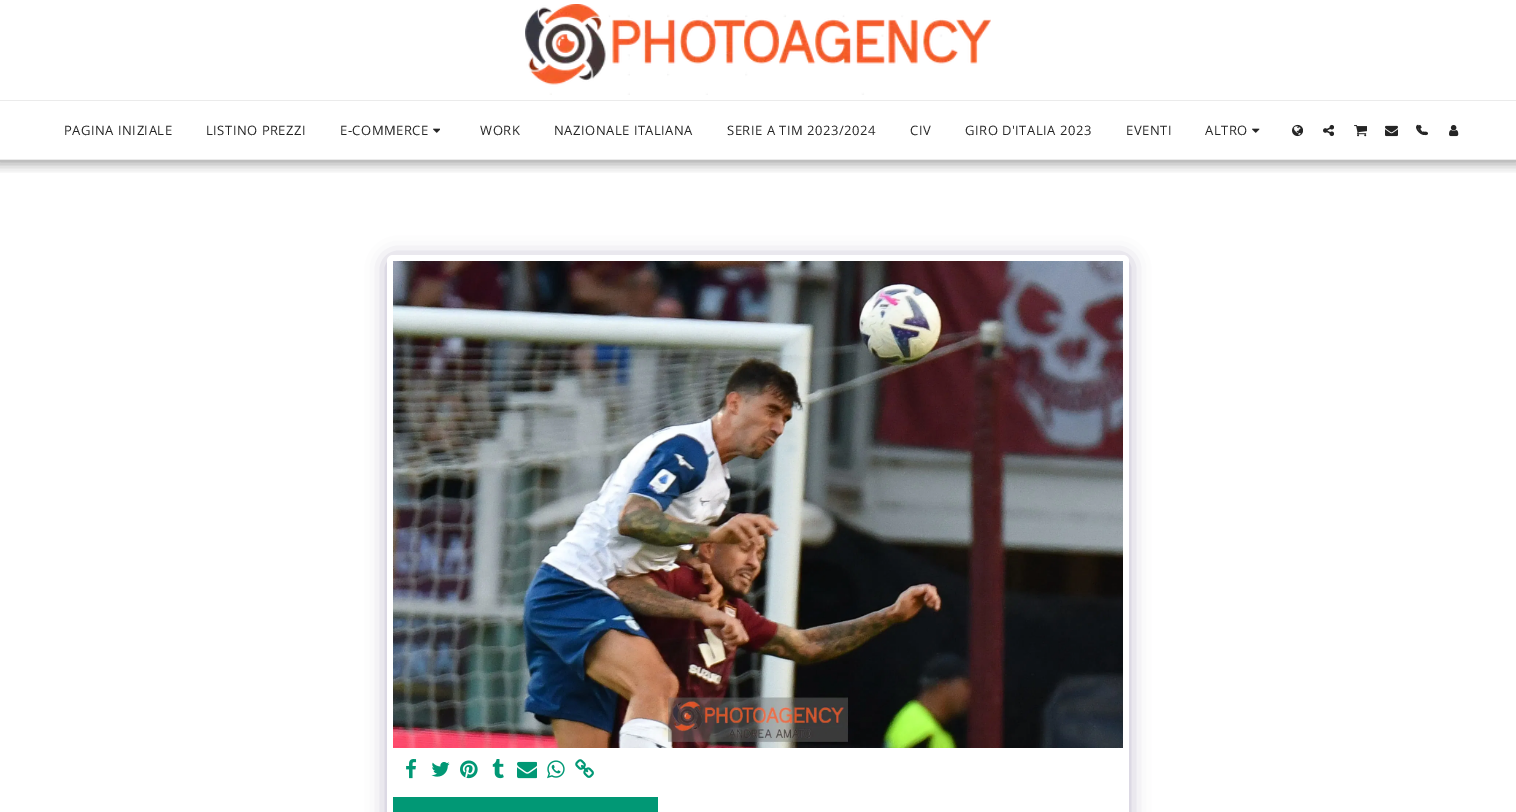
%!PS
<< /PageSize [1516 812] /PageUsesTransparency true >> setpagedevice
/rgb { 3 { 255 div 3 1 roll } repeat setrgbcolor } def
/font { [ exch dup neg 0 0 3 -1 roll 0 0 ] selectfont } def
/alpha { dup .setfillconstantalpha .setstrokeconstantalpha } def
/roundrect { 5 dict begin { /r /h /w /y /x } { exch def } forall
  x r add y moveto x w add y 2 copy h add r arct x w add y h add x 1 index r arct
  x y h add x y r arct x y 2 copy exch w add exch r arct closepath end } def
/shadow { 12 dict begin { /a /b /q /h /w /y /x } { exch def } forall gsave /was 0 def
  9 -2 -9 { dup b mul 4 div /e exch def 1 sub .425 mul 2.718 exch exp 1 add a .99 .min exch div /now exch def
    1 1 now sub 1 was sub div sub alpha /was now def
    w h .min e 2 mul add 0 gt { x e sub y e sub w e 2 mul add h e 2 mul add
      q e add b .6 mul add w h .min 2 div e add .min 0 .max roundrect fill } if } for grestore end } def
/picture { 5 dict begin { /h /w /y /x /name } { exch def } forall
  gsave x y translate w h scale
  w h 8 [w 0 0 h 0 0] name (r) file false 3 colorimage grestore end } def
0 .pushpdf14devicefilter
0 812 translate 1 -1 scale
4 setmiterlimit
255 255 255 rgb
0 0 1516 812 rectfill
gsave
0 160 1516 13 rectclip
0 0 0 rgb
-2 0 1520 164 0 6 0.35 shadow
grestore
235 235 235 rgb
0 159 1516 1 rectfill
(img/1.rgb) 525 4 466 91 picture
0 100 1516 1 rectfill
(img/2.rgb) 433 128 7 5 picture
(img/3.rgb) 1252 128 8 5 picture
(img/4.rgb) 1292 124 11 13 picture
(img/5.rgb) 1323 124 11 13 picture
(img/6.rgb) 1354 125 13 12 picture
(img/7.rgb) 1385 125 13 12 picture
(img/8.rgb) 1418 125 10 11 picture
(img/9.rgb) 1416 124 9 11 picture
(img/10.rgb) 1449 125 10 12 picture
77 63 122 rgb
387 258 742 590 6 10 0.4 shadow
255 255 255 rgb
387 255 742 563 6 roundrect fill
(img/11.rgb) 393 261 730 487 picture
(img/12.rgb) 406 759 11 20 picture
(img/13.rgb) 431 762 19 15 picture
(img/14.rgb) 460 760 18 19 picture
(img/15.rgb) 492 759 12 20 picture
(img/16.rgb) 517 761 20 18 picture
(img/17.rgb) 547 760 18 19 picture
(img/18.rgb) 575 759 19 19 picture
1 152 117 rgb
393 797 265 15 rectfill
/OpenSans-Regular 13 font
37 37 37 rgb
64 135 moveto 0.5 0 (PAGINA INIZIALE) ashow
206 135 moveto 0.5 0 (LISTINO PREZZI) ashow
340 135 moveto 0.5 0 (E-COMMERCE) ashow
480 135 moveto 0.5 0 (WORK) ashow
554 135 moveto 0.5 0 (NAZIONALE ITALIANA) ashow
727 135 moveto 0.5 0 (SERIE A TIM 2023/2024) ashow
910 135 moveto 0.5 0 (CIV) ashow
965 135 moveto 0.5 0 (GIRO D'ITALIA 2023) ashow
1126 135 moveto 0.5 0 (EVENTI) ashow
1205 135 moveto 0.5 0 (ALTRO) ashow
.poppdf14devicefilter showpage
